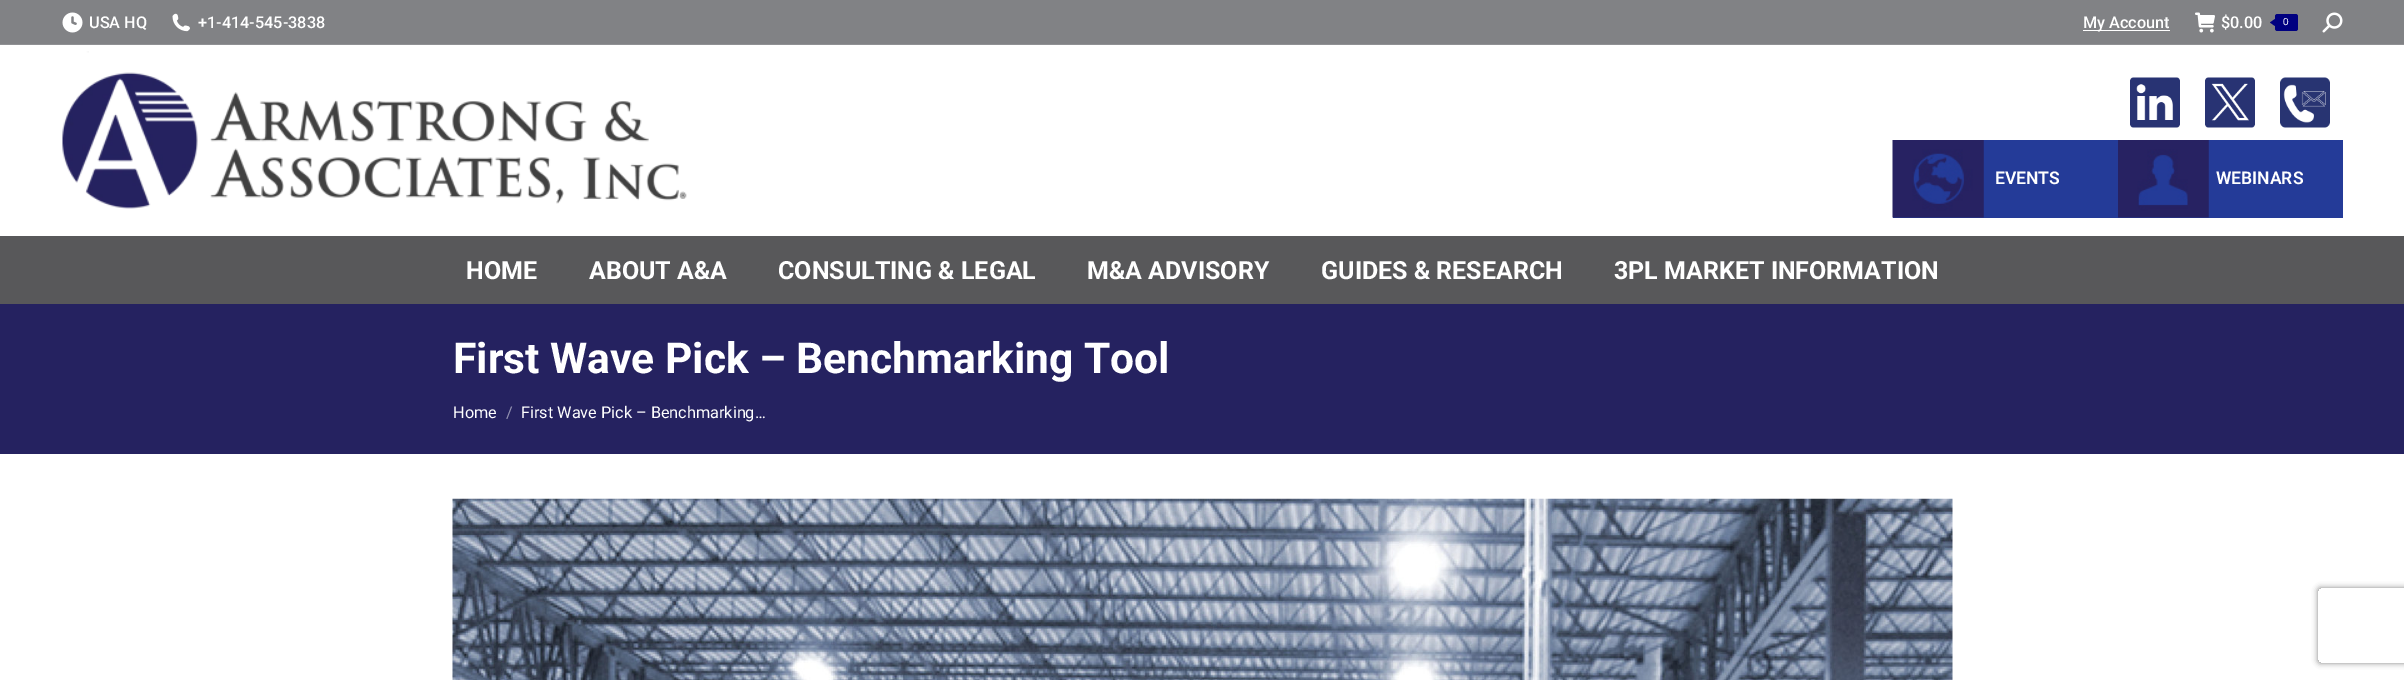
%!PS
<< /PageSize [2404 680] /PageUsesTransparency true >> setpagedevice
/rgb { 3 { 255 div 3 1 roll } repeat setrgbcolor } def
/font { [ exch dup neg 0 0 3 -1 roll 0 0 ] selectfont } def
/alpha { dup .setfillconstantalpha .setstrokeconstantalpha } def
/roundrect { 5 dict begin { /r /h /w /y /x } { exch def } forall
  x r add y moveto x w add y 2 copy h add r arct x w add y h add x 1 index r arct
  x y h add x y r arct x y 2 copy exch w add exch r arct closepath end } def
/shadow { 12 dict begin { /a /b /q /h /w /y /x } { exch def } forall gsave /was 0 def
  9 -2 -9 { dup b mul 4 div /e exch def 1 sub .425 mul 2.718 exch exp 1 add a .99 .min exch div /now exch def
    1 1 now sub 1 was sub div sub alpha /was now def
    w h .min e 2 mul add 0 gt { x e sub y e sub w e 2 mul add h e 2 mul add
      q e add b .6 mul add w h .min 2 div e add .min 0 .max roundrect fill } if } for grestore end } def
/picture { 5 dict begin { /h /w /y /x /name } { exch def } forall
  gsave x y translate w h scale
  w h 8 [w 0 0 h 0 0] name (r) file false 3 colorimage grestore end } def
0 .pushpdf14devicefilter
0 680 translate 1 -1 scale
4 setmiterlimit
255 255 255 rgb
0 0 2404 680 rectfill
129 130 133 rgb
0 0 2404 44 rectfill
(img/1.rgb) 62 12 21 21 picture
(img/2.rgb) 172 13 18 19 picture
255 255 255 rgb
2083 30 87 1 rectfill
(img/3.rgb) 2195 12 20 21 picture
0 0 128 rgb
2275 14 23 17 2.5 roundrect fill
2275 19 moveto 2275 26 lineto 2270 22.5 lineto closepath fill
(img/4.rgb) 2322 12 21 21 picture
144 145 148 rgb
0 44 2404 1 rectfill
(img/5.rgb) 62 51 625 158 picture
(img/6.rgb) 2130 77 50 51 picture
(img/7.rgb) 2205 77 50 51 picture
(img/8.rgb) 2280 77 50 51 picture
36 59 152 rgb
1893 140 450 78 rectfill
(img/9.rgb) 1892 140 92 78 picture
(img/10.rgb) 2118 140 91 78 picture
88 88 90 rgb
0 236 2404 68 rectfill
37 34 96 rgb
0 304 2404 150 rectfill
(img/11.rgb) 452 498 1501 182 picture
gsave
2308 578 moveto 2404 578 lineto 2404 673 lineto 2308 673 lineto closepath 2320.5 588 moveto 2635.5 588 lineto 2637 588 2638 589 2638 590.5 curveto 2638 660.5 lineto 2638 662 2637 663 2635.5 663 curveto 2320.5 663 lineto 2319 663 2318 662 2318 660.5 curveto 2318 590.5 lineto 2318 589 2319 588 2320.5 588 curveto closepath eoclip newpath
128 128 128 rgb
2318 588 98 75 2.5 3 1 shadow
grestore
/Roboto-Medium 16.25 font
255 255 255 rgb
[
  [(USA HQ) 89 28]
  [(+1-414-545-3838) 198 28]
  [(My Account) 2083 28]
  [($0.00) 2221 28]
] { aload pop moveto show } forall
/LiberationSans-Regular 10 font
2283 25 moveto (0) show
/Roboto-SemiBold 17.5 font
1995 184 moveto (EVENTS) show
2216 184 moveto (WEBINARS) show
/Roboto-Bold 25 font
[
  [(HOME) 466 279]
  [(ABOUT A&A) 589 279]
  [(CONSULTING & LEGAL) 778 279]
  [(M&A ADVISORY) 1087 279]
  [(GUIDES & RESEARCH) 1321 279]
  [(3PL MARKET INFORMATION) 1614 279]
] { aload pop moveto show } forall
/Roboto-Bold 42.5 font
453 373 moveto (First Wave Pick – Benchmarking Tool) show
/Roboto-Regular 16.25 font
453 418 moveto (Home) show
146 145 176 rgb
506 418 moveto (/) show
255 255 255 rgb
521 418 moveto (First Wave Pick – Benchmarking…) show
.poppdf14devicefilter showpage
